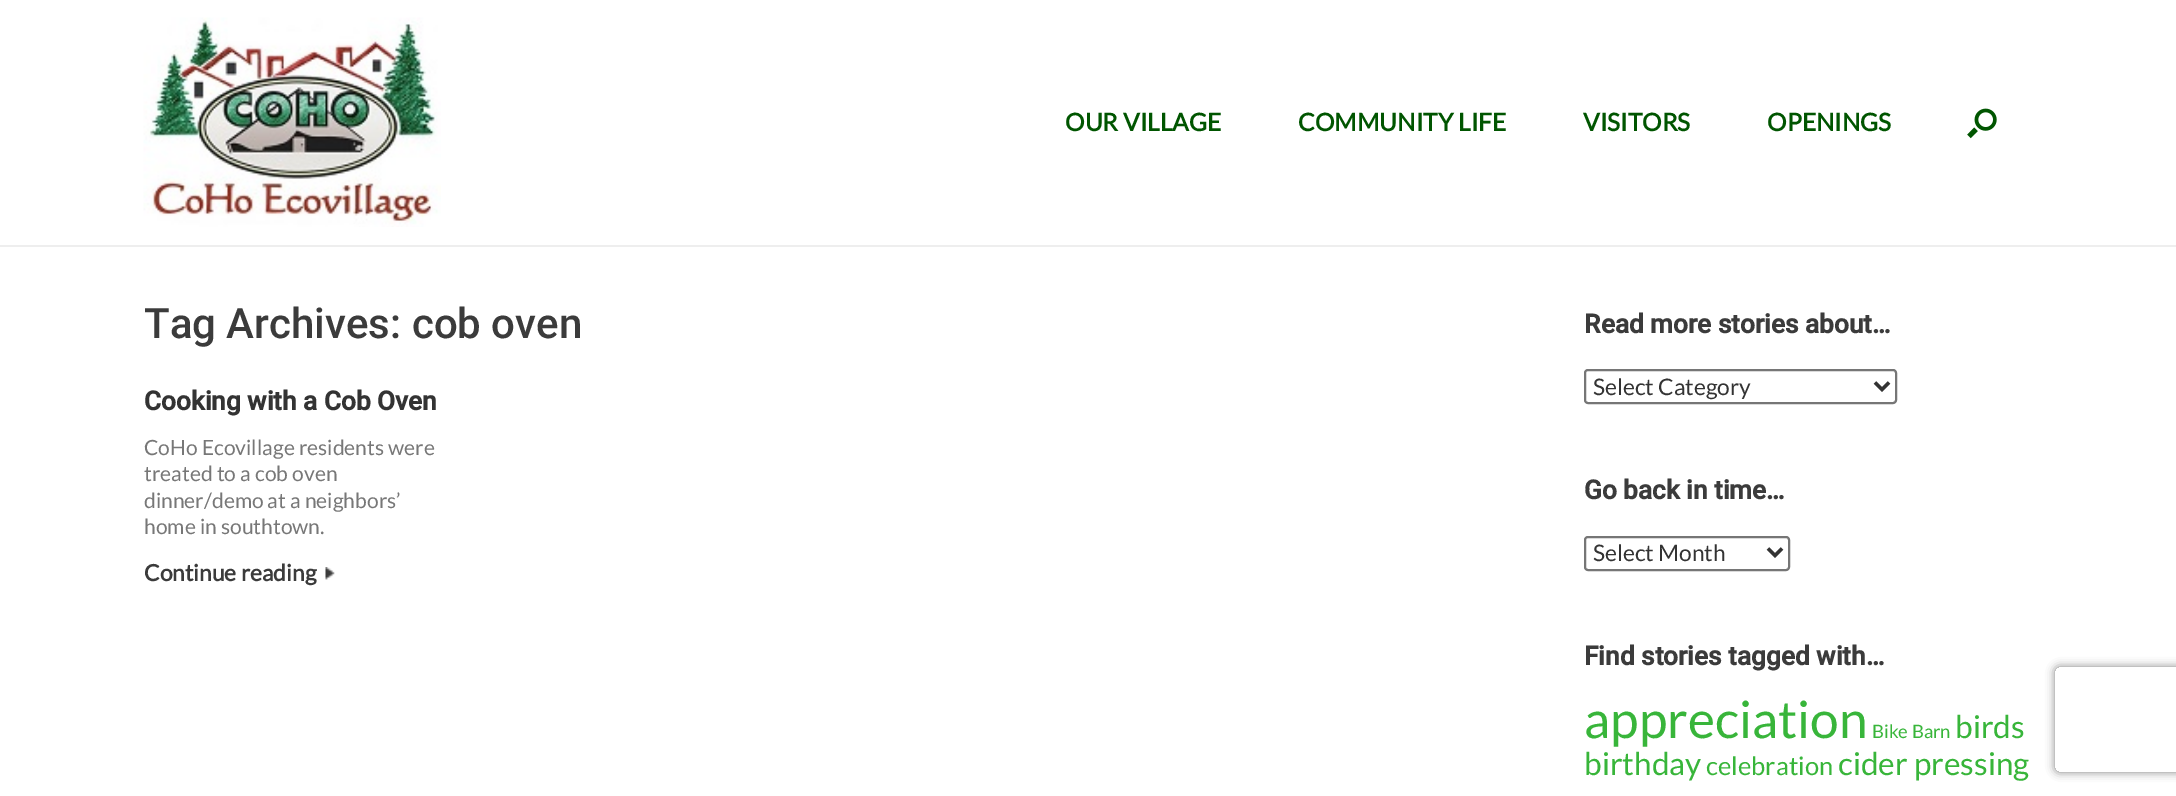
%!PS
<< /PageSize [2176 796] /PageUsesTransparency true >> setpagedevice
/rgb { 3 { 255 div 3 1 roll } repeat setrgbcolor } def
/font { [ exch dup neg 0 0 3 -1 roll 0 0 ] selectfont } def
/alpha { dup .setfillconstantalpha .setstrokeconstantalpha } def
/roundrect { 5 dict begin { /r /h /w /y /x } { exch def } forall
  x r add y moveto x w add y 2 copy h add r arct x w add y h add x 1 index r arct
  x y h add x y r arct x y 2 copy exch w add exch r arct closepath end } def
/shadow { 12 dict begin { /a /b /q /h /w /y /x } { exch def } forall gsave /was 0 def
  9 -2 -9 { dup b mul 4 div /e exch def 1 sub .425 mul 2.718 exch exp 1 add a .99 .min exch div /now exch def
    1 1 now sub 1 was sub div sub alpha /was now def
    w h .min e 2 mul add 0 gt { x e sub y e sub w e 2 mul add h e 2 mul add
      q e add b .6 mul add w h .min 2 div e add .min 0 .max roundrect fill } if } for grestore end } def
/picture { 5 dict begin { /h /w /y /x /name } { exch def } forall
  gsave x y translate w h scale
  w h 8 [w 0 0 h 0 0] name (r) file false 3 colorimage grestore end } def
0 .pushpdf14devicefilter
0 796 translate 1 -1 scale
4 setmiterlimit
255 255 255 rgb
0 0 2176 796 rectfill
(img/1.rgb) 143 17 298 210 picture
(img/2.rgb) 1967 108 30 31 picture
238 238 238 rgb
0 245 2176 2 rectfill
(img/3.rgb) 325 567 10 13 picture
118 118 118 rgb
2 setlinewidth
1585 370 311 33 3 roundrect stroke
51 51 51 rgb
3.5 setlinewidth
1875 382.5 moveto 1882 389.5 lineto 1889 382.5 lineto stroke
118 118 118 rgb
2 setlinewidth
1585 537 204 33 3 roundrect stroke
51 51 51 rgb
3.5 setlinewidth
1768 548.5 moveto 1775 555.5 lineto 1782 548.5 lineto stroke
gsave
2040 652 moveto 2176 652 lineto 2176 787 lineto 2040 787 lineto closepath 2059 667 moveto 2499 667 lineto 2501 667 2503 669 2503 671 curveto 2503 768 lineto 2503 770 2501 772 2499 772 curveto 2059 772 lineto 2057 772 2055 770 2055 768 curveto 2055 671 lineto 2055 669 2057 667 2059 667 curveto closepath eoclip newpath
128 128 128 rgb
2055 667 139 105 4 4.5 1 shadow
grestore
/Lato-Bold 24.5 font
0 85 0 rgb
[
  [(OUR VILLAGE) 1065 131]
  [(COMMUNITY LIFE) 1298 131]
  [(VISITORS) 1583 131]
  [(OPENINGS) 1767 131]
] { aload pop moveto show } forall
/Roboto-Medium 42 font
59 59 59 rgb
144 338 moveto (Tag Archives: cob oven) show
/Roboto-Bold 26.25 font
51 51 51 rgb
144 410 moveto (Cooking with a Cob Oven) show
/Lato-Regular 21 font
119 119 119 rgb
[
  [(CoHo Ecovillage residents were) 144 455]
  [(treated to a cob oven) 144 481]
  [(dinner/demo at a neighbors’) 144 508]
  [(home in southtown.) 144 534]
] { aload pop moveto show } forall
/Lato-Bold 22.75 font
59 59 59 rgb
144 581 moveto (Continue reading) show
/Roboto-Bold 26.25 font
1584 333 moveto (Read more stories about…) show
/Lato-Regular 22.75 font
51 51 51 rgb
1593 395 moveto (Select Category) show
/Roboto-Bold 26.25 font
59 59 59 rgb
1584 499 moveto (Go back in time…) show
/Lato-Regular 22.75 font
51 51 51 rgb
1593 561 moveto (Select Month) show
/Roboto-Bold 26.25 font
59 59 59 rgb
1584 665 moveto (Find stories tagged with…) show
/Lato-Regular 51.5 font
56 181 58 rgb
1584 738 moveto (appreciation) show
/Lato-Regular 18.5 font
1872 738 moveto (Bike Barn) show
/Lato-Regular 31.5 font
1955 738 moveto (birds) show
1584 775 moveto (birthday) show
/Lato-Regular 25.5 font
1706 775 moveto (celebration) show
/Lato-Regular 31.5 font
1838 775 moveto (cider pressing) show
.poppdf14devicefilter showpage
